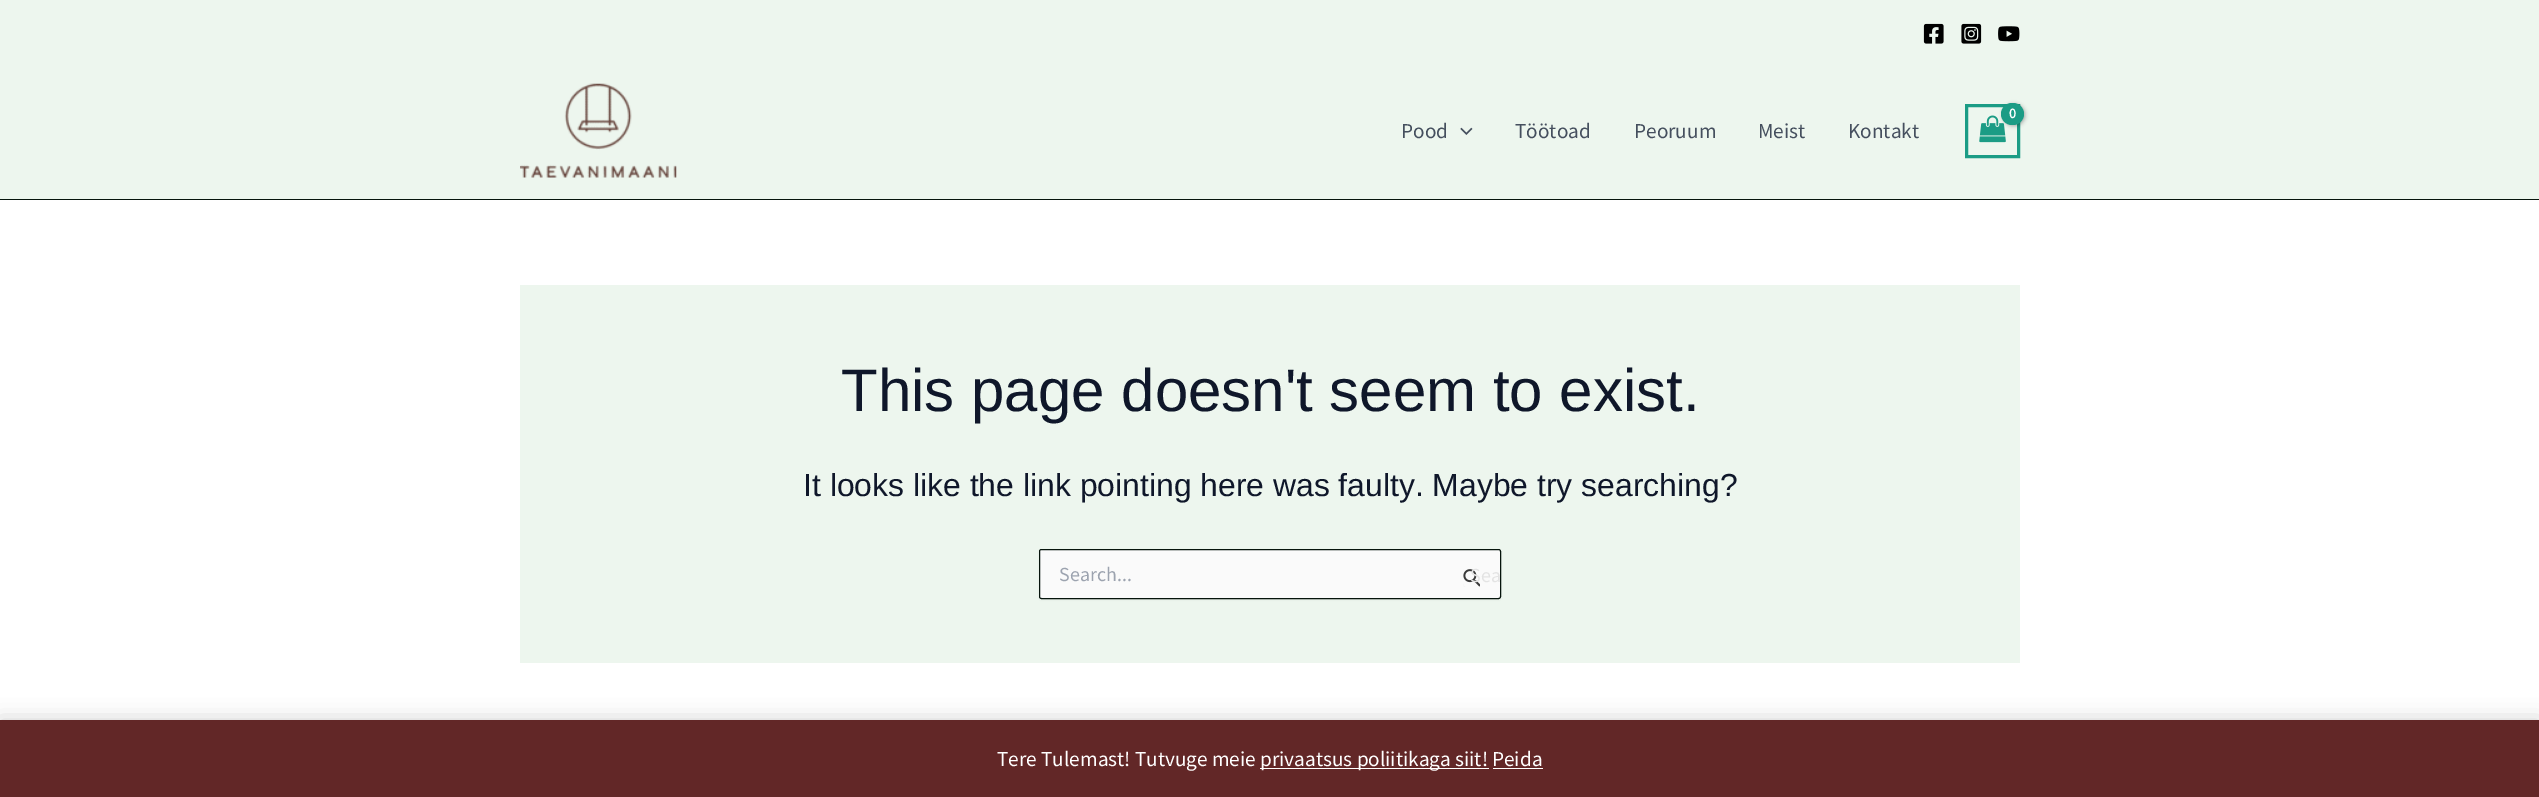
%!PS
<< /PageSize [2539 797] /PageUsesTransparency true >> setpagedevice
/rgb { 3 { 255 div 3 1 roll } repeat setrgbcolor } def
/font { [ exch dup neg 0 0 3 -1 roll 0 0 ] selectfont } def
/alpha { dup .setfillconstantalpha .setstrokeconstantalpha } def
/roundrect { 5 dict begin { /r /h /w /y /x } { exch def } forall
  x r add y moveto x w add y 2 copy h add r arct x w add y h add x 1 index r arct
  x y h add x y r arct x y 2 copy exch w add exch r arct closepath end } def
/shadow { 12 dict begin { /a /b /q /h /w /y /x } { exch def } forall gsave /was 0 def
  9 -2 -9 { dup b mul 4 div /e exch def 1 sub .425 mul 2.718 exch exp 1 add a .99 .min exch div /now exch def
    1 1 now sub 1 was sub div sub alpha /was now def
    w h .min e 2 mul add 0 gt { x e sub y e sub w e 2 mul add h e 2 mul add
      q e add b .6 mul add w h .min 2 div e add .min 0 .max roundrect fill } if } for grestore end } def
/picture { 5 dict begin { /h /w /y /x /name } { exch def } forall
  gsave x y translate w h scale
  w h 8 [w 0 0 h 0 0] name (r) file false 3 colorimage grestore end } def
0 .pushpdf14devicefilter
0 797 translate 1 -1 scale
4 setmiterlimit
255 255 255 rgb
0 0 2539 797 rectfill
237 246 238 rgb
0 0 2539 199 rectfill
(img/1.rgb) 1923 23 21 21 picture
(img/2.rgb) 1961 23 21 21 picture
(img/3.rgb) 1998 26 22 16 picture
6 20 12 rgb
0 199 2539 1 rectfill
(img/4.rgb) 520 83 157 95 picture
27 156 133 rgb
3 setlinewidth
1966.5 105.5 52 51 rectstroke
(img/5.rgb) 1979 115 27 28 picture
0 0 0 rgb
2003 104 22 22 11 2 0.3 shadow
27 156 133 rgb
2001 103 23 22 11 roundrect fill
(img/6.rgb) 1460 127 13 8 picture
237 246 238 rgb
520 285 1500 378 rectfill
0 0 0 rgb
1039 550 462 50 2.5 1 0.05 shadow
250 250 250 rgb
1039.5 549.5 461 49 2 roundrect gsave fill grestore
6 20 12 rgb
1 setlinewidth
stroke
(img/7.rgb) 1463 569 17 18 picture
0 0 0 rgb
0 721 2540 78 0 10.5 0.2 shadow
[
  [0 720 2539 77 98 39 39]
  [1260 768 229 1 255 255 255]
  [1493 768 50 1 255 255 255]
] { aload pop rgb rectfill } forall
/SourceSansPro-Bold 14 font
2009 118 moveto -1 0 (0) ashow
/SourceSansPro-Regular 21.25 font
69 79 94 rgb
[
  [(Pood) 1401 138]
  [(Töötoad) 1515 138]
  [(Peoruum) 1634 138]
  [(Meist) 1758 138]
  [(Kontakt) 1848 138]
] { aload pop moveto show } forall
/LiberationSans-Regular 60 font
15 23 42 rgb
841 411 moveto (This page doesn't seem to exist.) show
/LiberationSans-Regular 31.9 font
803 496 moveto (It looks like the link pointing here was faulty. Maybe try searching?) show
/SourceSansPro-Regular 20 font
156 163 175 rgb
1059 581 moveto (Search...) show
227 227 227 rgb
1470 582 moveto (Sea) show
/SourceSansPro-Regular 21.25 font
255 255 255 rgb
997 766 moveto (Tere Tulemast! Tutvuge meie) show
1260 766 moveto (privaatsus poliitikaga siit! Peida) show
.poppdf14devicefilter showpage
